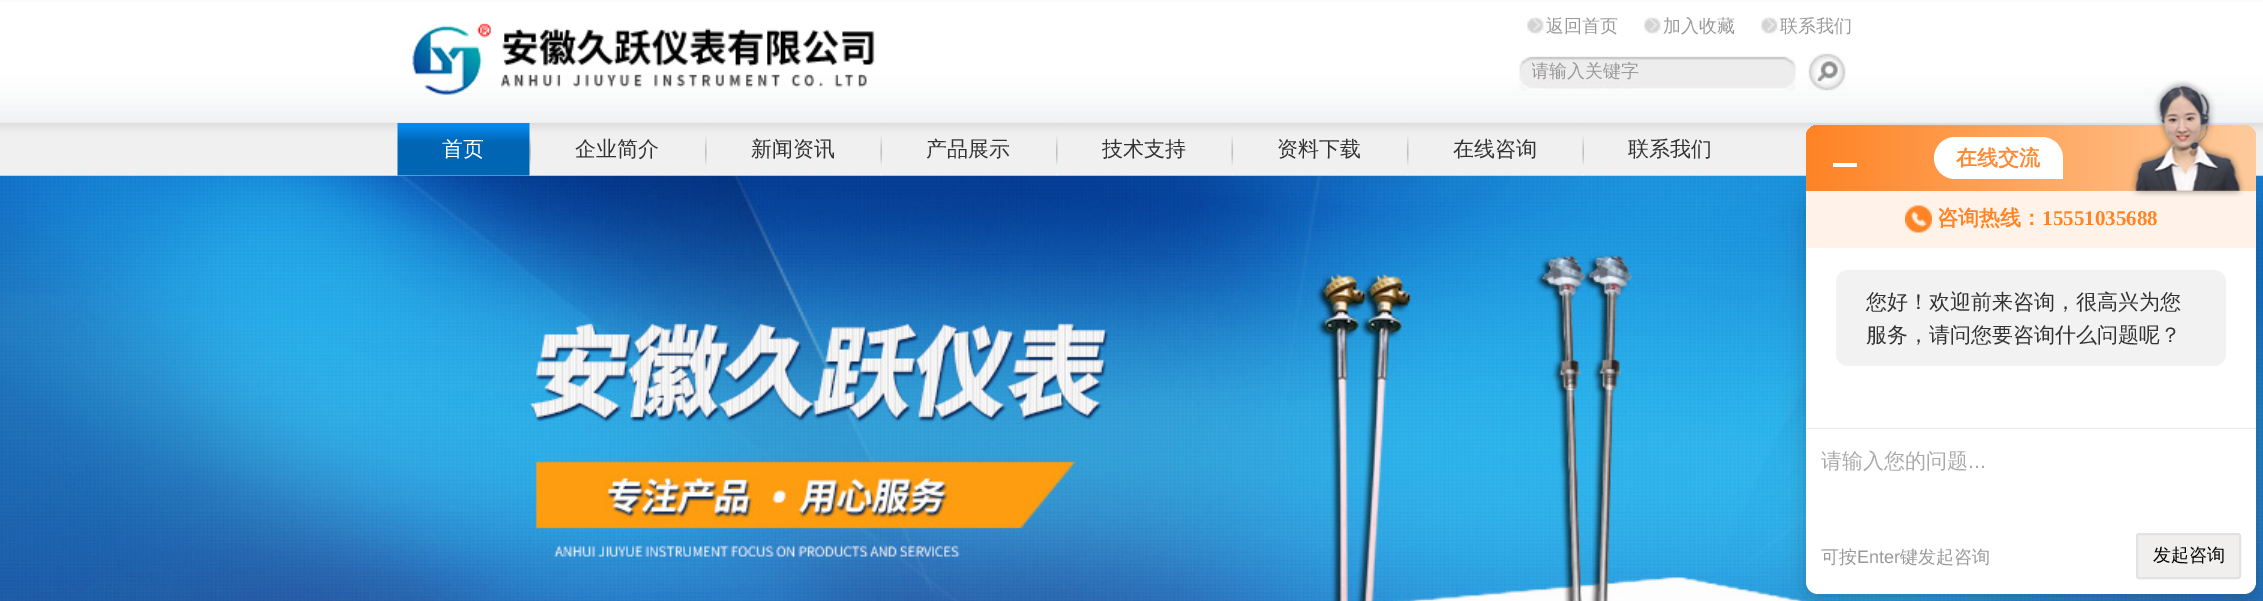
%!PS
<< /PageSize [2263 601] /PageUsesTransparency true >> setpagedevice
/rgb { 3 { 255 div 3 1 roll } repeat setrgbcolor } def
/font { [ exch dup neg 0 0 3 -1 roll 0 0 ] selectfont } def
/alpha { dup .setfillconstantalpha .setstrokeconstantalpha } def
/roundrect { 5 dict begin { /r /h /w /y /x } { exch def } forall
  x r add y moveto x w add y 2 copy h add r arct x w add y h add x 1 index r arct
  x y h add x y r arct x y 2 copy exch w add exch r arct closepath end } def
/shadow { 12 dict begin { /a /b /q /h /w /y /x } { exch def } forall gsave /was 0 def
  9 -2 -9 { dup b mul 4 div /e exch def 1 sub .425 mul 2.718 exch exp 1 add a .99 .min exch div /now exch def
    1 1 now sub 1 was sub div sub alpha /was now def
    w h .min e 2 mul add 0 gt { x e sub y e sub w e 2 mul add h e 2 mul add
      q e add b .6 mul add w h .min 2 div e add .min 0 .max roundrect fill } if } for grestore end } def
/picture { 5 dict begin { /h /w /y /x /name } { exch def } forall
  gsave x y translate w h scale
  w h 8 [w 0 0 h 0 0] name (r) file false 3 colorimage grestore end } def
0 .pushpdf14devicefilter
0 601 translate 1 -1 scale
4 setmiterlimit
255 255 255 rgb
0 0 2263 601 rectfill
(img/1.rgb) 0 0 2263 176 picture
(img/2.rgb) 412 23 463 72 picture
(img/3.rgb) 1527 17 21 20 picture
(img/3.rgb) 1644 17 21 20 picture
(img/3.rgb) 1761 17 21 20 picture
(img/4.rgb) 1519 56 277 35 picture
(img/5.rgb) 1808 53 38 38 picture
(img/6.rgb) 529 123 2 53 picture
(img/7.rgb) 397 123 133 53 picture
(img/8.rgb) 705 123 2 53 picture
(img/6.rgb) 880 123 2 53 picture
(img/8.rgb) 1056 123 2 53 picture
(img/6.rgb) 1231 123 2 53 picture
(img/8.rgb) 1407 123 2 53 picture
(img/6.rgb) 1582 123 2 53 picture
(img/11.rgb) 0 175 2263 426 picture
0 0 0 rgb
1806 197 450 403 12 12 0.2 shadow
gsave 1818 125 moveto 2244 125 lineto 2250.5 125 2256 130.5 2256 137 curveto 2256 191 lineto 1806 191 lineto 1806 137 lineto 1806 130.5 1811.5 125 1818 125 curveto closepath clip newpath
<< /ShadingType 2 /ColorSpace /DeviceRGB /Coords [1806 158 2256 157] /Extend [true true] /Function << /FunctionType 2 /Domain [0 1] /C0 [1 0.514 0.141] /C1 [0.996 0.796 0.612] /N 1 >> >> shfill grestore
255 255 255 rgb
1833 163 24 4 rectfill
1955 137 moveto 2042 137 lineto 2053.5 137 2063 146.5 2063 158 curveto 2063 179 lineto 1955 179 lineto 1943.5 179 1934 169.5 1934 158 curveto 1934 146.5 1943.5 137 1955 137 curveto closepath fill
1806 191 moveto 2256 191 lineto 2256 582 lineto 2256 588.5 2250.5 594 2244 594 curveto 1818 594 lineto 1811.5 594 1806 588.5 1806 582 curveto closepath fill
255 243 233 rgb
1806 191 450 57 rectfill
(img/9.rgb) 2130 80 115 117 picture
(img/10.rgb) 1905 205 27 28 picture
242 242 242 rgb
1836 270 390 96 12 roundrect fill
234 234 234 rgb
1806 428 450 1 rectfill
240 239 237 rgb
2137 534 103 44 2 roundrect gsave fill grestore
226 226 226 rgb
2 setlinewidth
stroke
/WenQuanYiZenHei-Medium 18 font
153 153 153 rgb
[
  [(返回首页) 1546 32]
  [(加入收藏) 1663 32]
  [(联系我们) 1780 32]
] { aload pop moveto show } forall
gsave
1532 62 247 21 rectclip
1531 77 moveto (请输入关键字) show
grestore
/WenQuanYiZenHei-Medium 21 font
255 255 255 rgb
442 156 moveto (首页) show
51 51 51 rgb
[
  [(企业简介) 575 156]
  [(新闻资讯) 751 156]
  [(产品展示) 926 156]
  [(技术支持) 1102 156]
  [(资料下载) 1277 156]
  [(在线咨询) 1453 156]
  [(联系我们) 1628 156]
] { aload pop moveto show } forall
/WenQuanYiZenHei-Bold 21 font
251 139 54 rgb
1956 165 moveto (在线交流) show
255 132 38 rgb
1937 225 moveto (咨询热线：) show
/LiberationSerif-Bold 21 font
2042 225 moveto (15551035688) show
/WenQuanYiZenHei-Medium 21 font
51 51 51 rgb
1866 309 moveto (您好！欢迎前来咨询，很高兴为您) show
1866 342 moveto (服务，请问您要咨询什么问题呢？) show
170 170 170 rgb
1821 468 moveto (请输入您的问题) show
/LiberationSans-Regular 21 font
1968 468 moveto (...) show
/WenQuanYiZenHei-Medium 18 font
153 153 153 rgb
1821 563 moveto (可按) show
/LiberationSans-Regular 18 font
1857 563 moveto (Enter) show
/WenQuanYiZenHei-Medium 18 font
1900 563 moveto (键发起咨询) show
0 0 0 rgb
2153 561 moveto (发起咨询) show
.poppdf14devicefilter showpage
